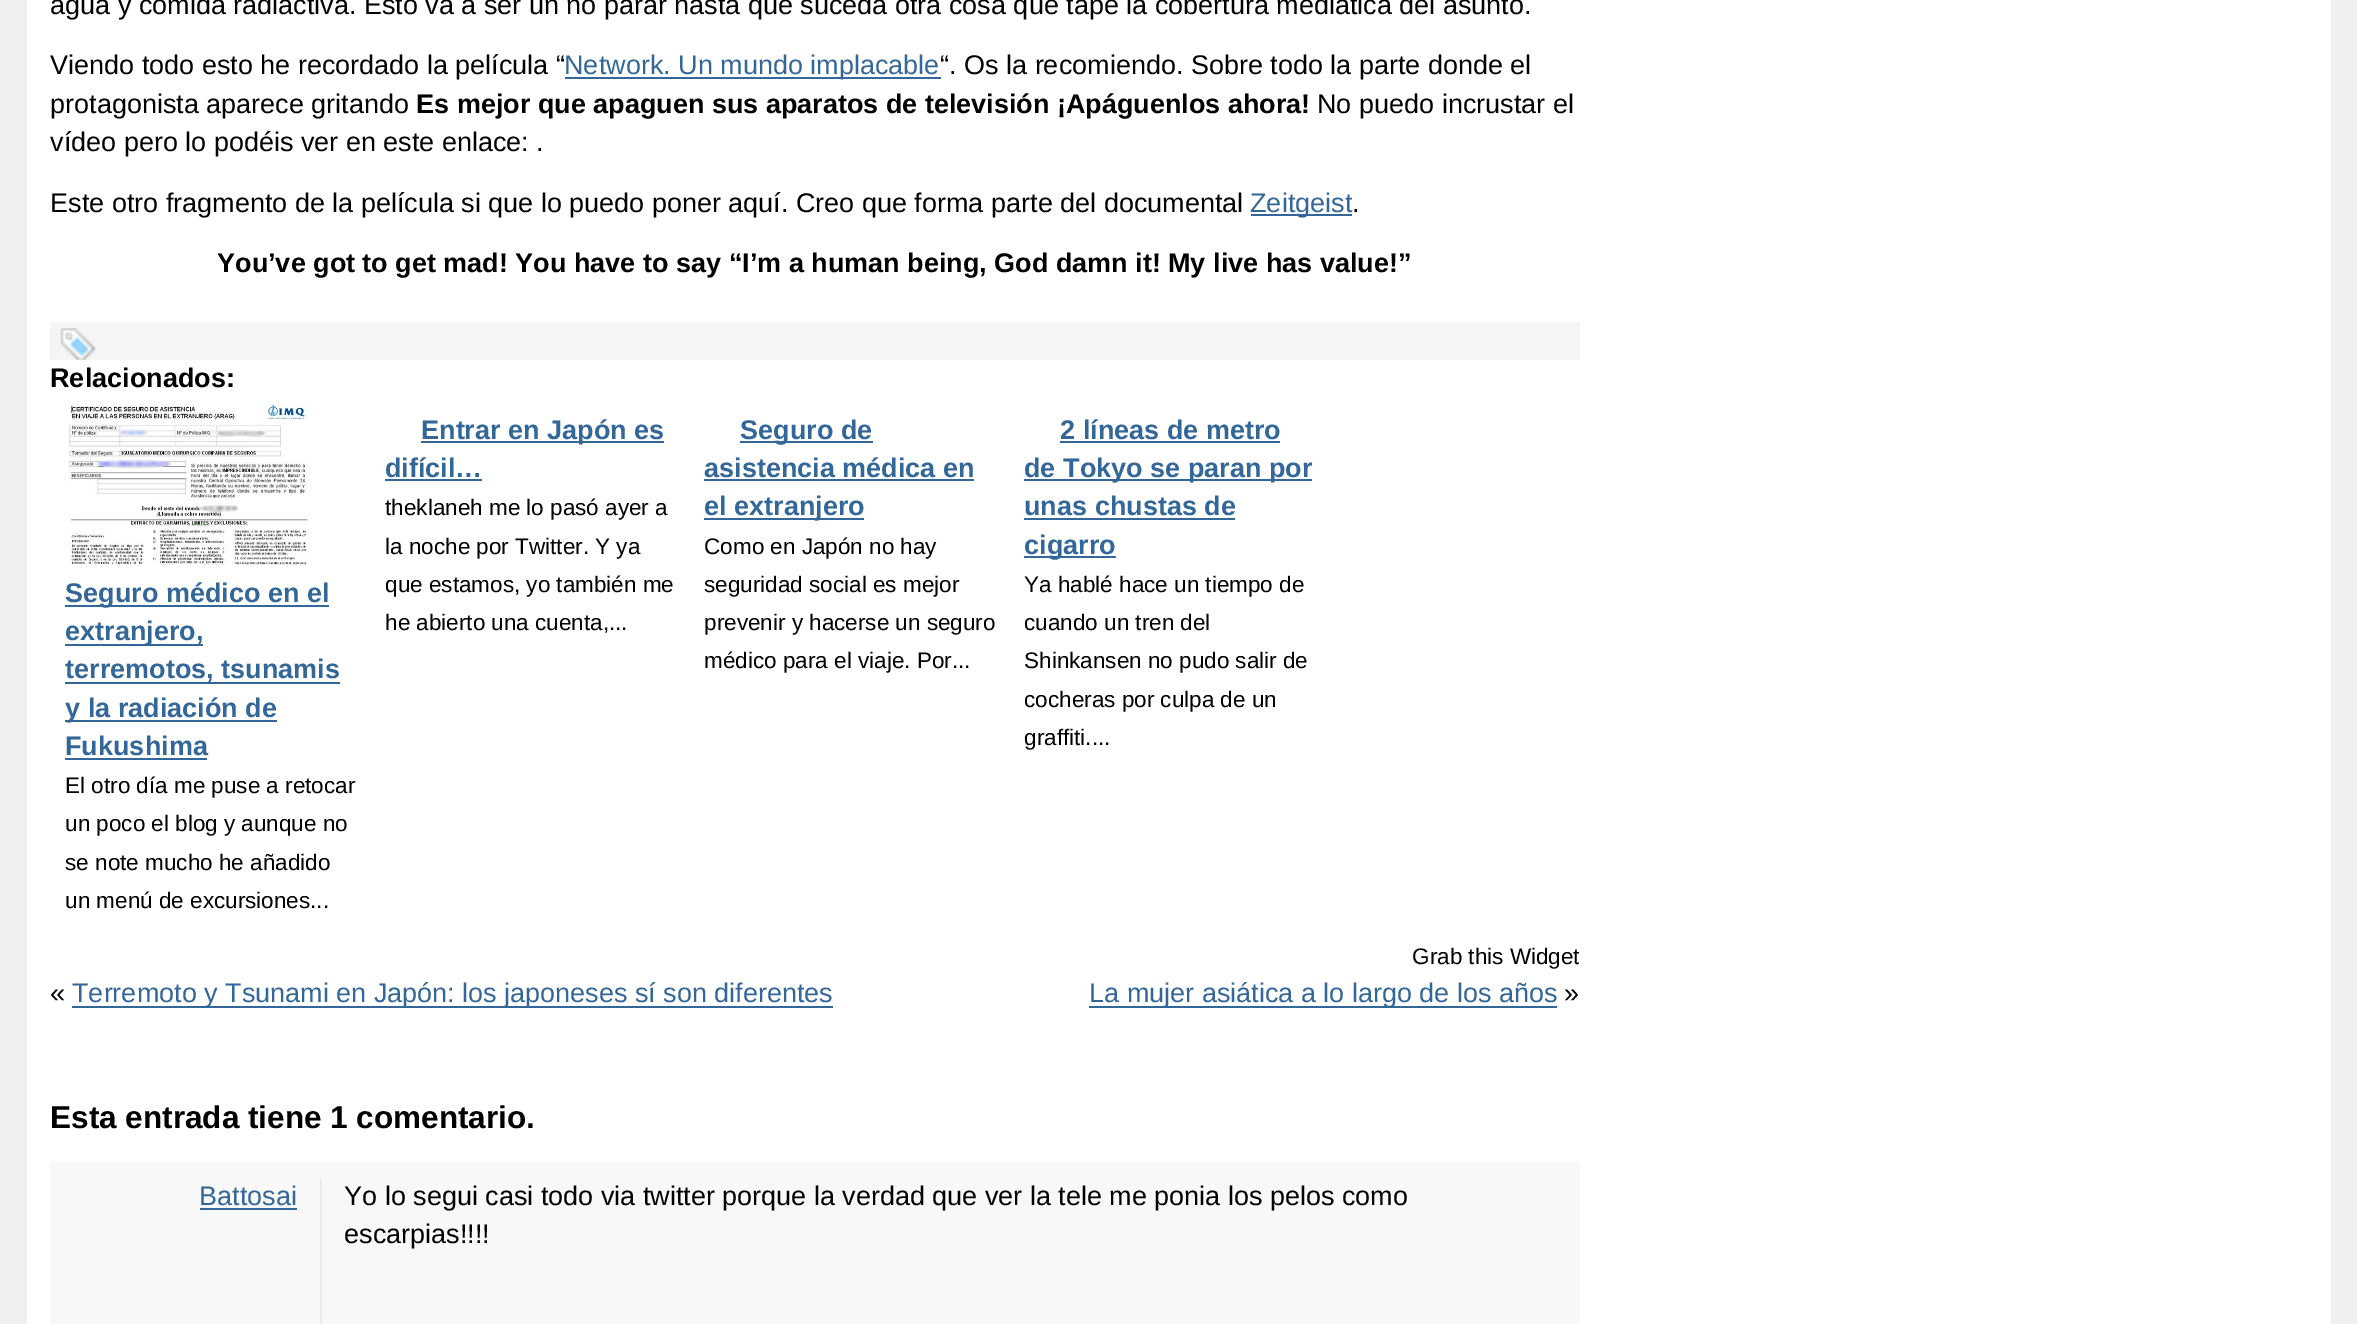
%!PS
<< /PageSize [2357 1324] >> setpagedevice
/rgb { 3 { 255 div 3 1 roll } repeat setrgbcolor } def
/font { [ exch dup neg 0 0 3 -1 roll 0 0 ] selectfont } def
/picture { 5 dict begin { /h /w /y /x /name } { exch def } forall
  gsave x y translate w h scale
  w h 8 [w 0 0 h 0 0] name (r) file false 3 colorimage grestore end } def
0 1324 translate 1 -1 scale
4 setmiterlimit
240 240 240 rgb
0 0 2357 1324 rectfill
[
  [27 0 2304 1324 255 255 255]
  [565 77 376 2 51 102 153]
  [1251 214 101 2 51 102 153]
  [50 322 1530 38 245 245 245]
] { aload pop rgb rectfill } forall
(img/1.rgb) 60 328 37 32 picture
(img/2.rgb) 69 402 241 163 picture
[
  [65 605 264 2 51 102 153]
  [65 644 138 2 51 102 153]
  [65 682 275 2 51 102 153]
  [65 720 212 2 51 102 153]
  [65 758 142 2 51 102 153]
  [421 441 243 2 51 102 153]
  [385 479 97 2 51 102 153]
  [740 441 133 2 51 102 153]
  [704 479 270 2 51 102 153]
  [704 518 160 2 51 102 153]
  [1060 441 220 2 51 102 153]
  [1024 479 288 2 51 102 153]
  [1024 518 211 2 51 102 153]
  [1024 556 92 2 51 102 153]
  [72 1006 761 2 51 102 153]
  [1089 1006 468 2 51 102 153]
  [50 1161 1530 163 248 248 248]
  [320 1179 2 145 234 234 234]
  [200 1208 97 2 51 102 153]
] { aload pop rgb rectfill } forall
/LiberationSans-Regular 27 font
0 0 0 rgb
50 14 moveto (agua y comida radiactiva. Esto va a ser un no parar hasta que suceda otra cosa que tape la cobertura mediática del asunto.) show
50 74 moveto (Viendo todo esto he recordado la película “) show
51 102 153 rgb
564 74 moveto (Network. Un mundo implacable) show
0 0 0 rgb
940 74 moveto (“. Os la recomiendo. Sobre todo la parte donde el) show
50 113 moveto (protagonista aparece gritando) show
/LiberationSans-Bold 27 font
416 113 moveto (Es mejor que apaguen sus aparatos de televisión ¡Apáguenlos ahora!) show
/LiberationSans-Regular 27 font
[
  [(No puedo incrustar el) 1317 113]
  [(vídeo pero lo podéis ver en este enlace: .) 50 151]
  [(Este otro fragmento de la película si que lo puedo poner aquí. Creo que forma parte del documental) 50 212]
] { aload pop moveto show } forall
51 102 153 rgb
1250 212 moveto (Zeitgeist) show
0 0 0 rgb
1352 212 moveto (.) show
/LiberationSans-Bold 27 font
217 272 moveto (You’ve got to get mad! You have to say “I’m a human being, God damn it! My live has value!”) show
50 387 moveto (Relacionados:) show
51 102 153 rgb
[
  [(Seguro médico en el) 65 602]
  [(extranjero,) 65 640]
  [(terremotos, tsunamis) 65 678]
  [(y la radiación de) 65 717]
  [(Fukushima) 65 755]
] { aload pop moveto show } forall
/LiberationSans-Regular 22.5 font
0 0 0 rgb
[
  [(El otro día me puse a retocar) 65 793]
  [(un poco el blog y aunque no) 65 831]
  [(se note mucho he añadido) 65 870]
  [(un menú de excursiones...) 65 908]
] { aload pop moveto show } forall
/LiberationSans-Bold 27 font
51 102 153 rgb
421 439 moveto (Entrar en Japón es) show
385 477 moveto (difícil…) show
/LiberationSans-Regular 22.5 font
0 0 0 rgb
[
  [(theklaneh me lo pasó ayer a) 385 515]
  [(la noche por Twitter. Y ya) 385 554]
  [(que estamos, yo también me) 385 592]
  [(he abierto una cuenta,...) 385 630]
] { aload pop moveto show } forall
/LiberationSans-Bold 27 font
51 102 153 rgb
[
  [(Seguro de) 740 439]
  [(asistencia médica en) 704 477]
  [(el extranjero) 704 515]
] { aload pop moveto show } forall
/LiberationSans-Regular 22.5 font
0 0 0 rgb
[
  [(Como en Japón no hay) 704 554]
  [(seguridad social es mejor) 704 592]
  [(prevenir y hacerse un seguro) 704 630]
  [(médico para el viaje. Por...) 704 668]
] { aload pop moveto show } forall
/LiberationSans-Bold 27 font
51 102 153 rgb
[
  [(2 líneas de metro) 1060 439]
  [(de Tokyo se paran por) 1024 477]
  [(unas chustas de) 1024 515]
  [(cigarro) 1024 554]
] { aload pop moveto show } forall
/LiberationSans-Regular 22.5 font
0 0 0 rgb
[
  [(Ya hablé hace un tiempo de) 1024 592]
  [(cuando un tren del) 1024 630]
  [(Shinkansen no pudo salir de) 1024 668]
  [(cocheras por culpa de un) 1024 707]
  [(graffiti....) 1024 745]
  [(Grab this Widget) 1412 964]
] { aload pop moveto show } forall
/LiberationSans-Regular 27 font
50 1002 moveto («) show
51 102 153 rgb
72 1002 moveto (Terremoto y Tsunami en Japón: los japoneses sí son diferentes) show
1089 1002 moveto (La mujer asiática a lo largo de los años) show
0 0 0 rgb
1564 1002 moveto (») show
/LiberationSans-Bold 31.5 font
50 1128 moveto (Esta entrada tiene 1 comentario.) show
/LiberationSans-Regular 27 font
51 102 153 rgb
199 1205 moveto (Battosai) show
0 0 0 rgb
344 1205 moveto (Yo lo segui casi todo via twitter porque la verdad que ver la tele me ponia los pelos como) show
344 1243 moveto (escarpias!!!!) show
showpage
